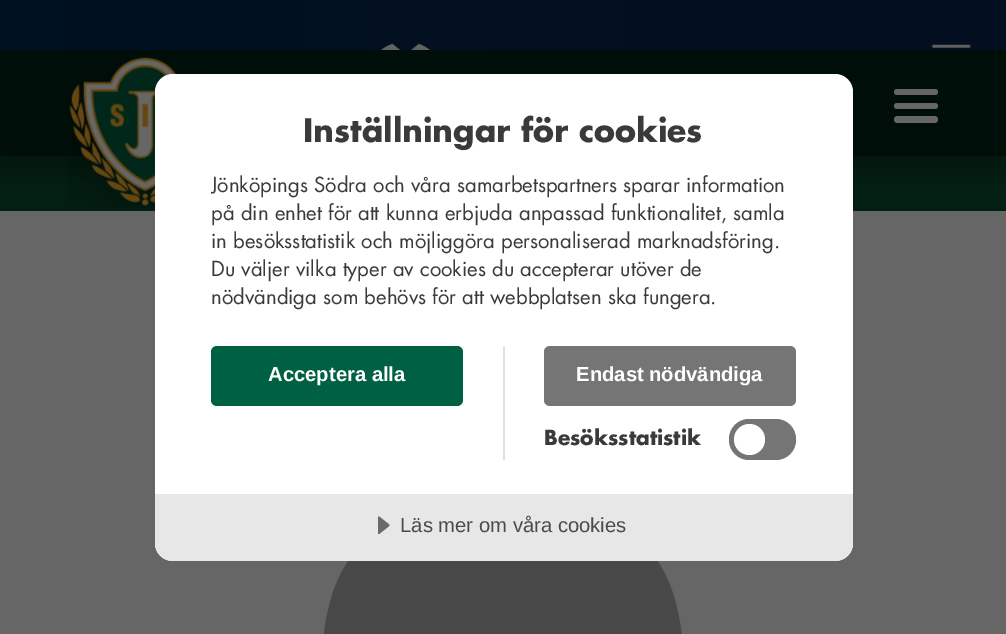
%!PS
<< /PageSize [1006 634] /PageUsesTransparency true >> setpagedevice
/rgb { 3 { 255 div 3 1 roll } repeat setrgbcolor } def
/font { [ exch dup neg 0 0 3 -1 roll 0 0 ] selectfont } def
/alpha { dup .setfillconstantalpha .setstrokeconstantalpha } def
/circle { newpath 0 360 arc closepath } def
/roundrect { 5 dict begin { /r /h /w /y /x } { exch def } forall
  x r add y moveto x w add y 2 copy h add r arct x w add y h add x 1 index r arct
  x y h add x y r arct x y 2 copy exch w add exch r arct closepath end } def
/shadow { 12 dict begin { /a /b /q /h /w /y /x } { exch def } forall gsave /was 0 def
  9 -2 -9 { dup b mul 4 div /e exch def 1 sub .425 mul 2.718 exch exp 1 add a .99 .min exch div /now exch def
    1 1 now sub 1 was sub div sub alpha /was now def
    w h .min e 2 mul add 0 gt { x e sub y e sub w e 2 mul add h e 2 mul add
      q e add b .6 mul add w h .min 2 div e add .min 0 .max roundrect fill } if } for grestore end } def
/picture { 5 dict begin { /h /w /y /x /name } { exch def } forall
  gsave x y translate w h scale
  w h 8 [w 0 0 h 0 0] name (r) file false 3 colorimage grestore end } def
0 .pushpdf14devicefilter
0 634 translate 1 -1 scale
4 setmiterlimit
102 102 102 rgb
0 0 1006 634 rectfill
0 17 32 rgb
0 0 64 50 rectfill
(img/1.rgb) 64 0 942 50 picture
3 30 18 rgb
0 156 1006 55 rectfill
0 0 0 rgb
0 63 1006 106 0 12.5 0.3 shadow
0 14 10 rgb
0 50 1006 106 rectfill
(img/2.rgb) 68 57 156 151 picture
102 102 102 rgb
894 89 44 6 3 roundrect fill
894 103 44 6 3 roundrect fill
894 116 44 7 3.5 roundrect fill
255 255 255 rgb
155 74 698 487 18 roundrect fill
224 224 224 rgb
503 346 2 114 rectfill
0 96 66 rgb
211 346 252 60 6 roundrect fill
117 117 117 rgb
544 346 252 60 6 roundrect fill
729 419 67 41 20 roundrect fill
255 255 255 rgb
749.5 439.5 15.5 circle fill
231 231 231 rgb
155 494 moveto 853 494 lineto 853 543 lineto 853 553 845 561 835 561 curveto 173 561 lineto 163 561 155 553 155 543 curveto closepath fill
(img/3.rgb) 378 516 12 18 picture
(img/4.rgb) 323 561 360 73 picture
/Futura-Bold 31.5 font
58 58 58 rgb
303 142 moveto (Inställningar för cookies) show
gsave
211 151 585 162 rectclip
/Futura-Regular 20.25 font
211 192 moveto (Jönköpings Södra och våra samarbetspartners sparar information) show
grestore
/Futura-Regular 20.25 font
[
  [(på din enhet för att kunna erbjuda anpassad funktionalitet, samla) 211 220]
  [(in besöksstatistik och möjliggöra personaliserad marknadsföring.) 211 248]
  [(Du väljer vilka typer av cookies du accepterar utöver de) 211 276]
  [(nödvändiga som behövs för att webbplatsen ska fungera.) 211 304]
] { aload pop moveto show } forall
/LiberationSans-Bold 20.25 font
255 255 255 rgb
268 381 moveto (Acceptera alla) show
576 381 moveto (Endast nödvändiga) show
/Futura-Bold 20.25 font
58 58 58 rgb
544 445 moveto (Besöksstatistik) show
/LiberationSans-Regular 20.25 font
75 75 75 rgb
400 532 moveto (Läs mer om våra cookies) show
.poppdf14devicefilter showpage
